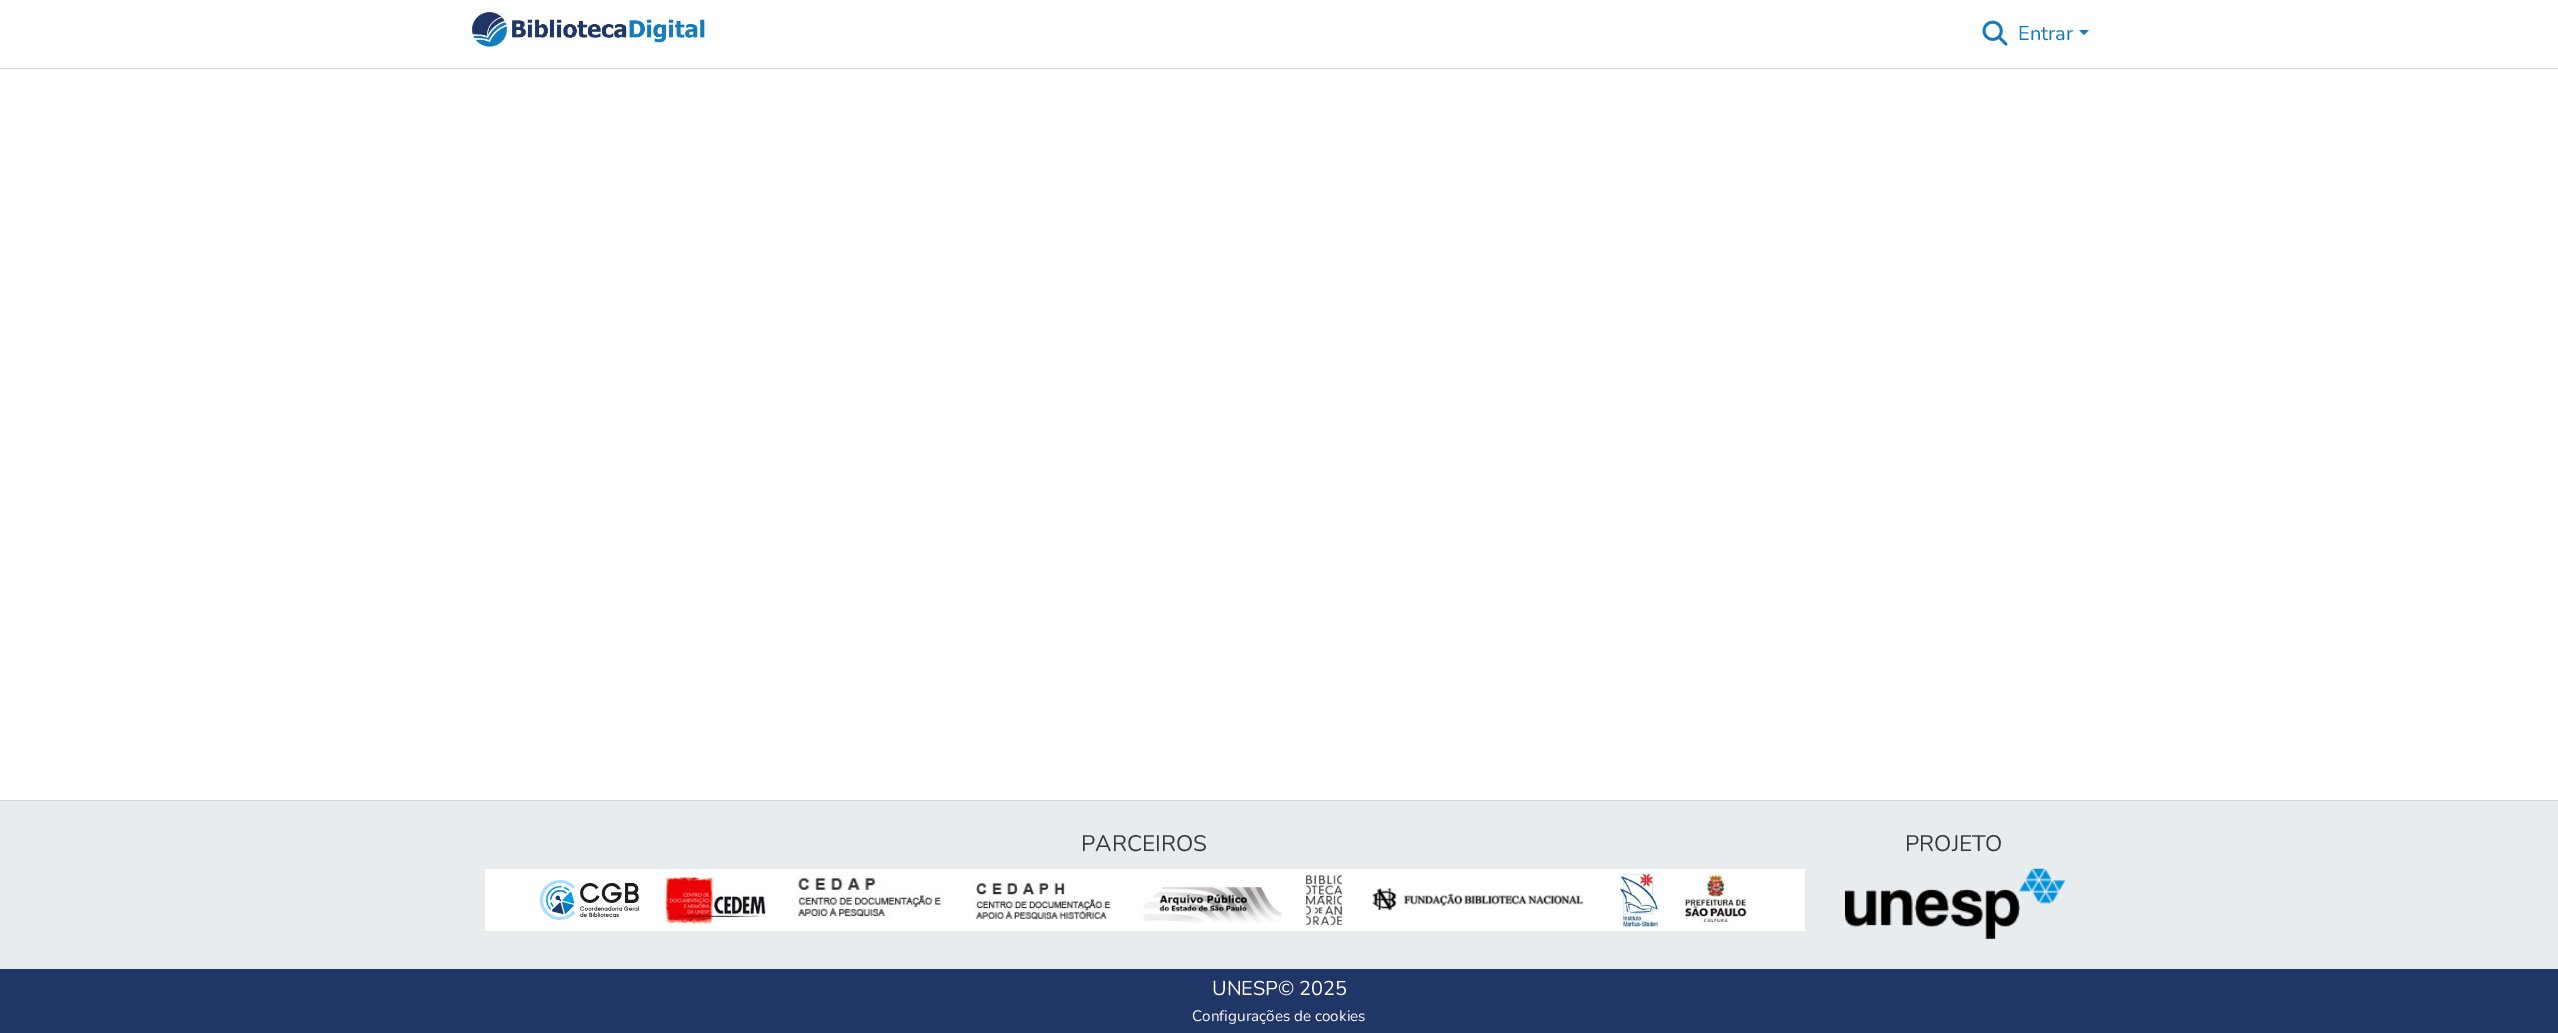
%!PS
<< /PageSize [2558 1033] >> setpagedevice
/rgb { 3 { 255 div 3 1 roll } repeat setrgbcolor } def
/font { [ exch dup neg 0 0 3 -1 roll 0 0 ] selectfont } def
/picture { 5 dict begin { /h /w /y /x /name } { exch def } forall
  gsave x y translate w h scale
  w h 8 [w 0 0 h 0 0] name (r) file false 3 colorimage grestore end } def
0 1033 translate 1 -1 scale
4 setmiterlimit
255 255 255 rgb
0 0 2558 1033 rectfill
206 212 218 rgb
0 68 2558 1 rectfill
(img/1.rgb) 471 11 234 36 picture
(img/2.rgb) 1982 20 26 26 picture
20 124 188 rgb
2079 30 moveto 2089 30 lineto 2084 35 lineto closepath fill
[
  [0 800 2558 1 206 212 218]
  [0 801 2558 168 233 236 239]
  [485 869 1320 62 255 255 255]
] { aload pop rgb rectfill } forall
(img/3.rgb) 540 880 99 40 picture
(img/4.rgb) 665 874 101 52 picture
(img/5.rgb) 794 874 149 44 picture
(img/6.rgb) 974 880 137 41 picture
(img/7.rgb) 1143 885 139 38 picture
(img/8.rgb) 1305 875 37 51 picture
(img/9.rgb) 1371 887 213 24 picture
(img/10.rgb) 1620 873 38 54 picture
(img/11.rgb) 1685 874 62 51 picture
(img/12.rgb) 1845 868 220 71 picture
31 54 103 rgb
0 969 2558 64 rectfill
/Nunito-Regular 20 font
20 124 188 rgb
2018 40 moveto (Entrar) show
/Nunito-Regular 22.5 font
52 58 64 rgb
1081 851 moveto (PARCEIROS) show
1905 851 moveto (PROJETO) show
/Nunito-Regular 20 font
255 255 255 rgb
1212 995 moveto (UNESP© 2025) show
/Nunito-Regular 15.25 font
1192 1021 moveto (Configurações de cookies) show
showpage
